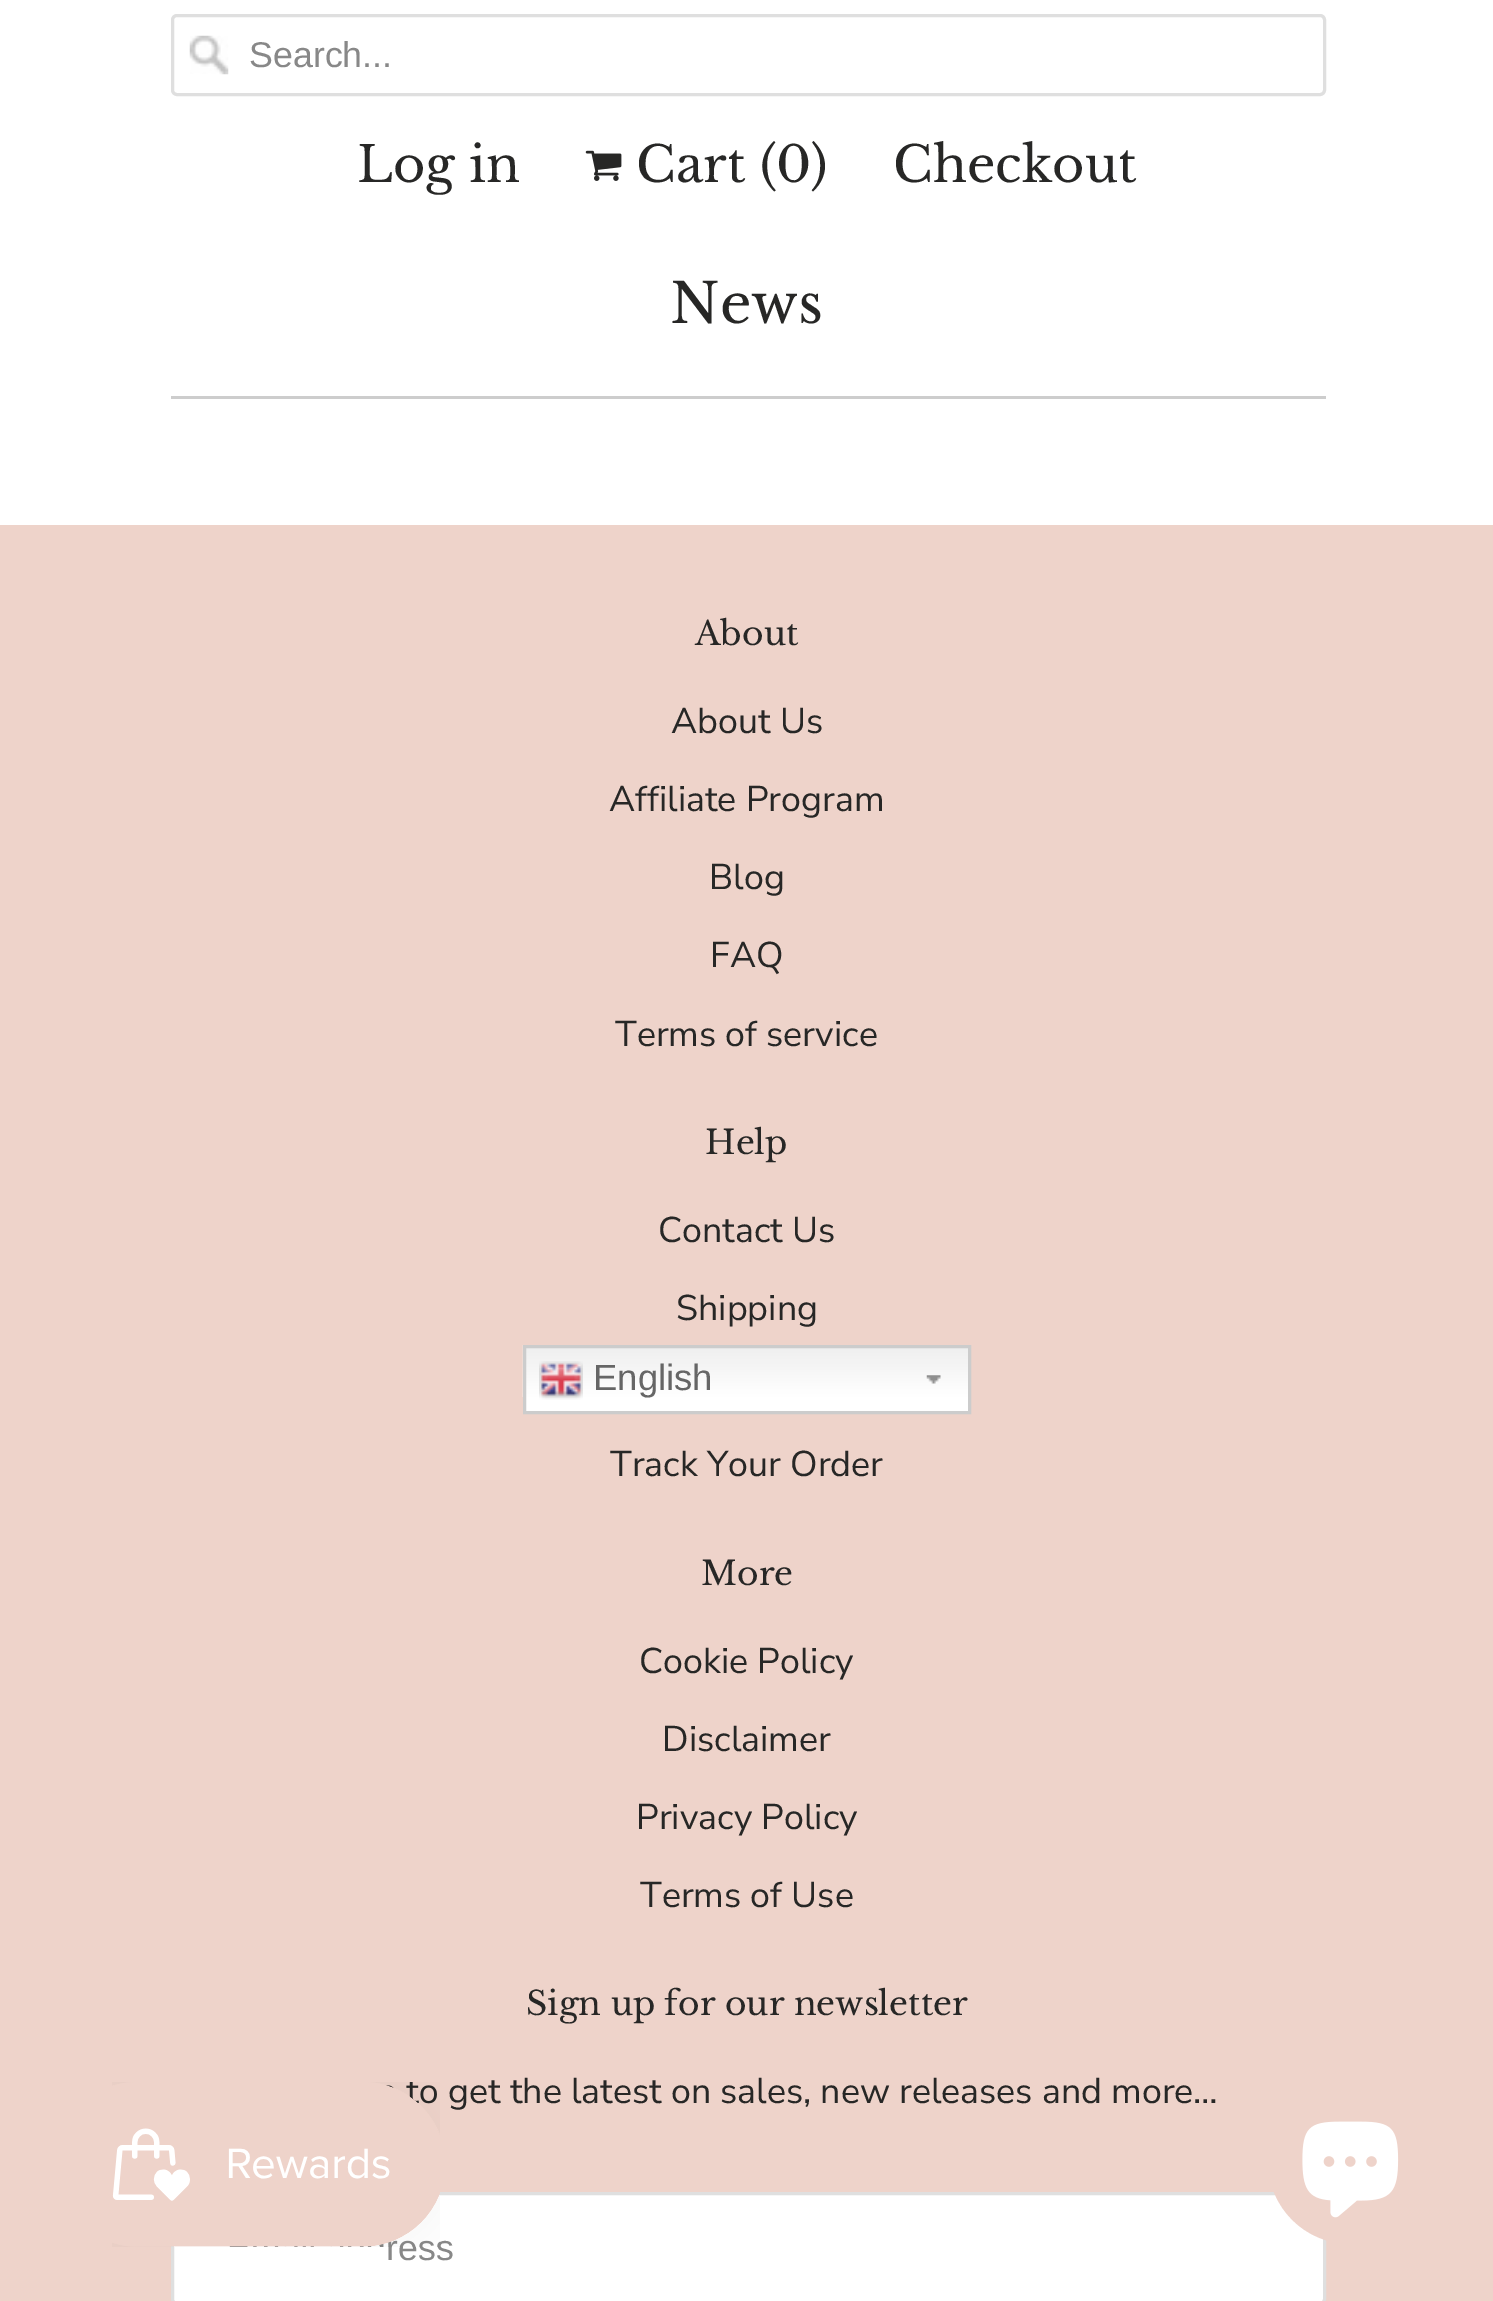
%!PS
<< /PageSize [1493 2301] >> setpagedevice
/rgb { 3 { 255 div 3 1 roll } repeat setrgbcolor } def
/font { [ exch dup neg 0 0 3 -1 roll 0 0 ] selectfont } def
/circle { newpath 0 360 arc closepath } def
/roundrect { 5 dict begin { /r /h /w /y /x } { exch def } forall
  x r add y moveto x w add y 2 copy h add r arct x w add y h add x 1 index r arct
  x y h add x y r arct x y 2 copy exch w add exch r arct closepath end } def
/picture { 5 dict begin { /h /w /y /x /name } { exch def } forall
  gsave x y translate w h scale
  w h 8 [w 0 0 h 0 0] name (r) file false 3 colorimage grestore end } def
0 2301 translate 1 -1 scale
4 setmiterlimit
255 255 255 rgb
0 0 1493 2301 rectfill
(img/1.rgb) 189 35 40 40 picture
223 223 223 rgb
3 setlinewidth
172.5 15.5 1152 79 4.5 roundrect stroke
(img/2.rgb) 585 150 37 31 picture
205 205 205 rgb
171 396 1155 3 rectfill
238 211 202 rgb
0 525 1493 1776 rectfill
255 255 255 rgb
172.5 2193.5 1152 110 4.5 roundrect gsave fill grestore
223 223 223 rgb
stroke
255 255 255 rgb
526 1397 442 14 rectfill
(img/3.rgb) 522 1345 446 52 picture
(img/4.rgb) 926 1375 15 9 picture
204 204 204 rgb
524.5 1346.5 445 66 rectstroke
(img/5.rgb) 539 1361 44 39 picture
238 211 202 rgb
1350.5 2161.5 82.5 circle fill
(img/7.rgb) 1302 2121 97 97 picture
/LiberationSans-Regular 35.75 font
136 136 136 rgb
249 67 moveto (Search...) show
/LibreBaskerville-Regular 49.5 font
39 39 38 rgb
[
  [(Log in) 357 182]
  [(Cart \(0\)) 636 182]
  [(Checkout) 893 182]
] { aload pop moveto show } forall
/LibreBaskerville-Regular 55 font
670 323 moveto (News) show
/LibreBaskerville-Regular 33 font
695 645 moveto (About) show
/NunitoSans-Regular 35.75 font
[
  [(About Us) 671 733]
  [(Affiliate Program) 609 811]
  [(Blog) 709 889]
  [(FAQ) 710 967]
  [(Terms of service) 615 1046]
] { aload pop moveto show } forall
/LibreBaskerville-Regular 33 font
705 1154 moveto (Help) show
/NunitoSans-Regular 35.75 font
[
  [(Contact Us) 658 1242]
  [(Shipping) 676 1320]
  [(Track Your Order) 610 1476]
] { aload pop moveto show } forall
/LibreBaskerville-Regular 33 font
701 1585 moveto (More) show
/NunitoSans-Regular 35.75 font
[
  [(Cookie Policy) 639 1673]
  [(Disclaimer) 662 1751]
  [(Privacy Policy) 636 1829]
  [(Terms of Use) 640 1907]
] { aload pop moveto show } forall
/LibreBaskerville-Regular 33 font
526 2015 moveto (Sign up for our newsletter) show
/NunitoSans-Regular 35.75 font
419 2103 moveto (o get the latest on sales, new releases and more…) show
/LiberationSans-Regular 35.75 font
136 136 136 rgb
386 2260 moveto (ress) show
/LiberationSans-Regular 36.5 font
102 102 102 rgb
593 1390 moveto (English) show
(img/6.rgb) 112 2082 328 165 picture
showpage
